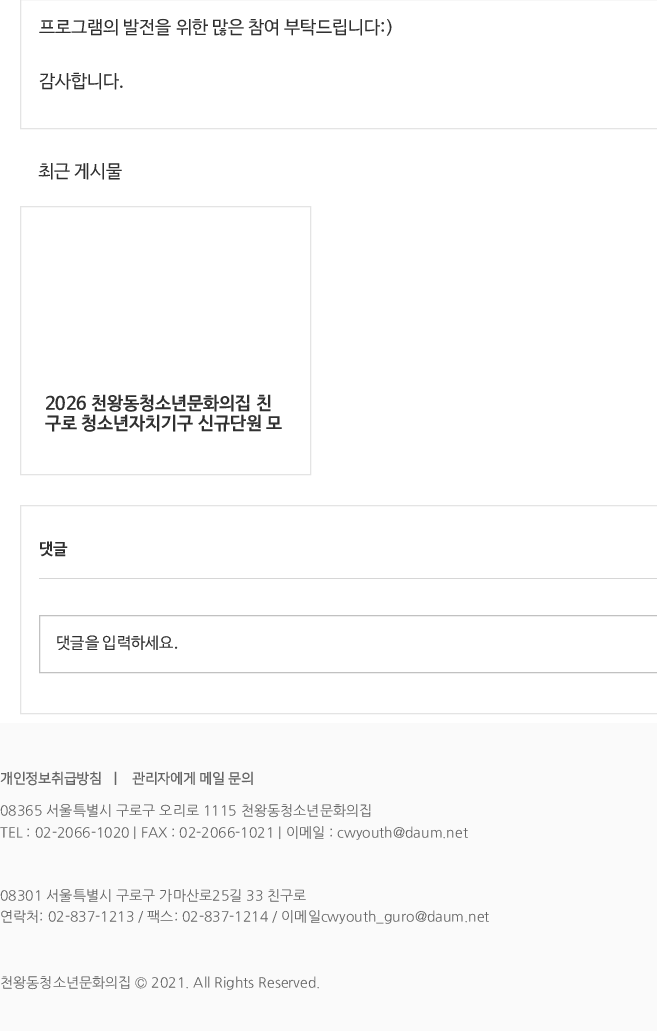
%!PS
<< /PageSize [657 1031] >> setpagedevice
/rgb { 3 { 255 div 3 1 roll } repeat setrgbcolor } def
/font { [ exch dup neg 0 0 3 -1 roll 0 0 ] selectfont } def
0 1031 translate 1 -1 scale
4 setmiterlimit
255 255 255 rgb
0 0 657 1031 rectfill
228 228 228 rgb
20.5 -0.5 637 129 rectstroke
20.5 206.5 290 268 rectstroke
20.5 505.5 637 208 rectstroke
214 214 214 rgb
39 578 618 1 rectfill
193 193 193 rgb
39.5 615.5 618 57 rectstroke
250 250 250 rgb
0 723 657 308 rectfill
/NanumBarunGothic-Regular 18 font
48 48 48 rgb
[
  [(프로그램의 발전을 위한 많은 참여 부탁드립니다:\)) 39 33]
  [(감사합니다.) 39 87]
  [(최근 게시물) 38 177]
] { aload pop moveto show } forall
/NanumBarunGothic-Bold 18 font
45 409 moveto (2026 천왕동청소년문화의집 친) show
45 429 moveto (구로 청소년자치기구 신규단원 모) show
/NanumBarunGothic-Bold 16 font
39 554 moveto (댓글) show
/NanumBarunGothic-Regular 16 font
56 648 moveto (댓글을 입력하세요.) show
/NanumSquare-Bold 14 font
100 100 100 rgb
[
  [(개인정보취급방침) 0 783]
  [(ㅣ) 109 783]
  [(관리자에게 메일 문의) 132 783]
] { aload pop moveto show } forall
/NanumGothic-Regular 14 font
[
  [(08365 서울특별시 구로구 오리로 1115 천왕동청소년문화의집) 0 815]
  [(TEL : 02-2066-1020 | FAX : 02-2066-1021 | 이메일 : cwyouth@daum.net) 0 837]
  [(08301 서울특별시 구로구 가마산로25길 33 친구로) 0 900]
  [(연락처: 02-837-1213 / 팩스: 02-837-1214 / 이메일cwyouth_guro@daum.net) 0 921]
  [(천왕동청소년문화의집 © 2021. All Rights Reserved.) 0 987]
] { aload pop moveto show } forall
showpage
